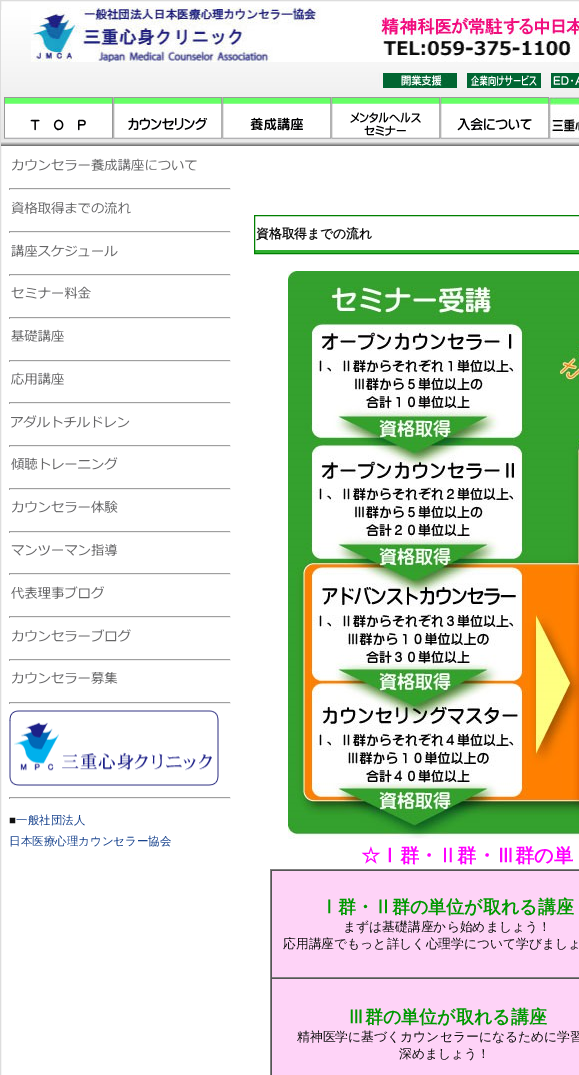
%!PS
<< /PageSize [579 1075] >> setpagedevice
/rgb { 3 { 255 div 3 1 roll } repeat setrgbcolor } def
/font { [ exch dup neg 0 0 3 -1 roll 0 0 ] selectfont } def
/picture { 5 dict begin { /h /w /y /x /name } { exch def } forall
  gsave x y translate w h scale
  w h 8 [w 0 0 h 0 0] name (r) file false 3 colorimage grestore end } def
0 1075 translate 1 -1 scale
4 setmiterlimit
255 255 255 rgb
0 0 579 1075 rectfill
221 221 221 rgb
0.5 0.5 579 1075 rectstroke
(img/1.rgb) 1 10 578 136 picture
(img/2.rgb) 39 62 534 21 picture
(img/3.rgb) 31 7 548 55 picture
(img/4.rgb) 378 73 79 15 picture
(img/5.rgb) 467 73 74 15 picture
(img/6.rgb) 551 73 28 15 picture
(img/7.rgb) 4 97 109 42 picture
(img/8.rgb) 113 97 109 42 picture
(img/9.rgb) 222 97 109 42 picture
(img/10.rgb) 331 97 109 42 picture
(img/11.rgb) 440 97 109 42 picture
(img/12.rgb) 549 97 30 42 picture
(img/13.rgb) 12 158 185 13 picture
[
  [9 188 222 1 159 159 159]
  [230 188 1 2 238 238 238]
  [9 189 222 1 238 238 238]
  [9 188 1 2 159 159 159]
] { aload pop rgb rectfill } forall
(img/14.rgb) 11 201 120 13 picture
[
  [9 231 222 1 159 159 159]
  [230 231 1 2 238 238 238]
  [9 232 222 1 238 238 238]
  [9 231 1 2 159 159 159]
] { aload pop rgb rectfill } forall
(img/15.rgb) 11 244 107 13 picture
[
  [9 274 222 1 159 159 159]
  [230 274 1 2 238 238 238]
  [9 275 222 1 238 238 238]
  [9 274 1 2 159 159 159]
] { aload pop rgb rectfill } forall
(img/16.rgb) 11 286 80 13 picture
[
  [9 317 222 1 159 159 159]
  [230 317 1 2 238 238 238]
  [9 318 222 1 238 238 238]
  [9 317 1 2 159 159 159]
] { aload pop rgb rectfill } forall
(img/17.rgb) 11 329 53 13 picture
[
  [9 360 222 1 159 159 159]
  [230 360 1 2 238 238 238]
  [9 361 222 1 238 238 238]
  [9 360 1 2 159 159 159]
] { aload pop rgb rectfill } forall
(img/18.rgb) 11 372 53 13 picture
[
  [9 402 222 1 159 159 159]
  [230 402 1 2 238 238 238]
  [9 403 222 1 238 238 238]
  [9 402 1 2 159 159 159]
] { aload pop rgb rectfill } forall
(img/19.rgb) 11 415 119 13 picture
[
  [9 445 222 1 159 159 159]
  [230 445 1 2 238 238 238]
  [9 446 222 1 238 238 238]
  [9 445 1 2 159 159 159]
] { aload pop rgb rectfill } forall
(img/20.rgb) 11 457 107 13 picture
[
  [9 488 222 1 159 159 159]
  [230 488 1 2 238 238 238]
  [9 489 222 1 238 238 238]
  [9 488 1 2 159 159 159]
] { aload pop rgb rectfill } forall
(img/21.rgb) 12 500 106 13 picture
[
  [9 531 222 1 159 159 159]
  [230 531 1 2 238 238 238]
  [9 532 222 1 238 238 238]
  [9 531 1 2 159 159 159]
] { aload pop rgb rectfill } forall
(img/22.rgb) 11 543 107 13 picture
[
  [9 573 222 1 159 159 159]
  [230 573 1 2 238 238 238]
  [9 574 222 1 238 238 238]
  [9 573 1 2 159 159 159]
] { aload pop rgb rectfill } forall
(img/23.rgb) 11 586 93 13 picture
[
  [9 616 222 1 159 159 159]
  [230 616 1 2 238 238 238]
  [9 617 222 1 238 238 238]
  [9 616 1 2 159 159 159]
] { aload pop rgb rectfill } forall
(img/24.rgb) 12 629 119 13 picture
[
  [9 659 222 1 159 159 159]
  [230 659 1 2 238 238 238]
  [9 660 222 1 238 238 238]
  [9 659 1 2 159 159 159]
] { aload pop rgb rectfill } forall
(img/25.rgb) 12 672 106 12 picture
[
  [9 702 222 1 159 159 159]
  [230 702 1 2 238 238 238]
  [9 703 222 1 238 238 238]
  [9 702 1 2 159 159 159]
] { aload pop rgb rectfill } forall
(img/26.rgb) 9 710 210 76 picture
[
  [9 797 222 1 159 159 159]
  [230 797 1 2 238 238 238]
  [9 798 222 1 238 238 238]
  [9 797 1 2 159 159 159]
] { aload pop rgb rectfill } forall
(img/27.rgb) 255 216 324 37 picture
0 128 0 rgb
254.5 215.5 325 38 rectstroke
(img/28.rgb) 288 271 291 568 picture
[
  [270 869 309 1 128 128 128]
  [270 869 1 206 128 128 128]
  [272 871 307 106 254 211 247]
  [271 870 308 1 85 85 85]
  [271 977 308 1 128 128 128]
  [271 870 1 108 85 85 85]
  [272 979 307 96 254 211 247]
  [271 978 308 1 85 85 85]
  [271 978 1 97 85 85 85]
] { aload pop rgb rectfill } forall
/LiberationSerif-Regular 11.5 font
17 17 17 rgb
9 824 moveto (■) show
/WenQuanYiZenHei-Medium 11.5 font
25 68 142 rgb
16 824 moveto (一般社団法人) show
9 845 moveto (日本医療心理カウンセラー協会) show
/WenQuanYiZenHei-Bold 12.8 font
17 17 17 rgb
256 238 moveto (資格取得までの流れ) show
/WenQuanYiZenHei-Bold 19.25 font
255 0 255 rgb
361 862 moveto (☆Ⅰ群・Ⅱ群・Ⅲ群の単) show
/WenQuanYiZenHei-Bold 18 font
0 153 0 rgb
320 913 moveto (Ⅰ群・Ⅱ群の単位が取れる講座) show
/WenQuanYiZenHei-Medium 12.8 font
17 17 17 rgb
343 931 moveto (まずは基礎講座から始めましょう！) show
283 948 moveto (応用講座でもっと詳しく心理学について学びましょ) show
/WenQuanYiZenHei-Bold 18 font
0 153 0 rgb
347 1023 moveto (Ⅲ群の単位が取れる講座) show
/WenQuanYiZenHei-Medium 12.8 font
17 17 17 rgb
297 1041 moveto (精神医学に基づくカウンセラーになるために学習) show
399 1058 moveto (深めましょう！) show
showpage
